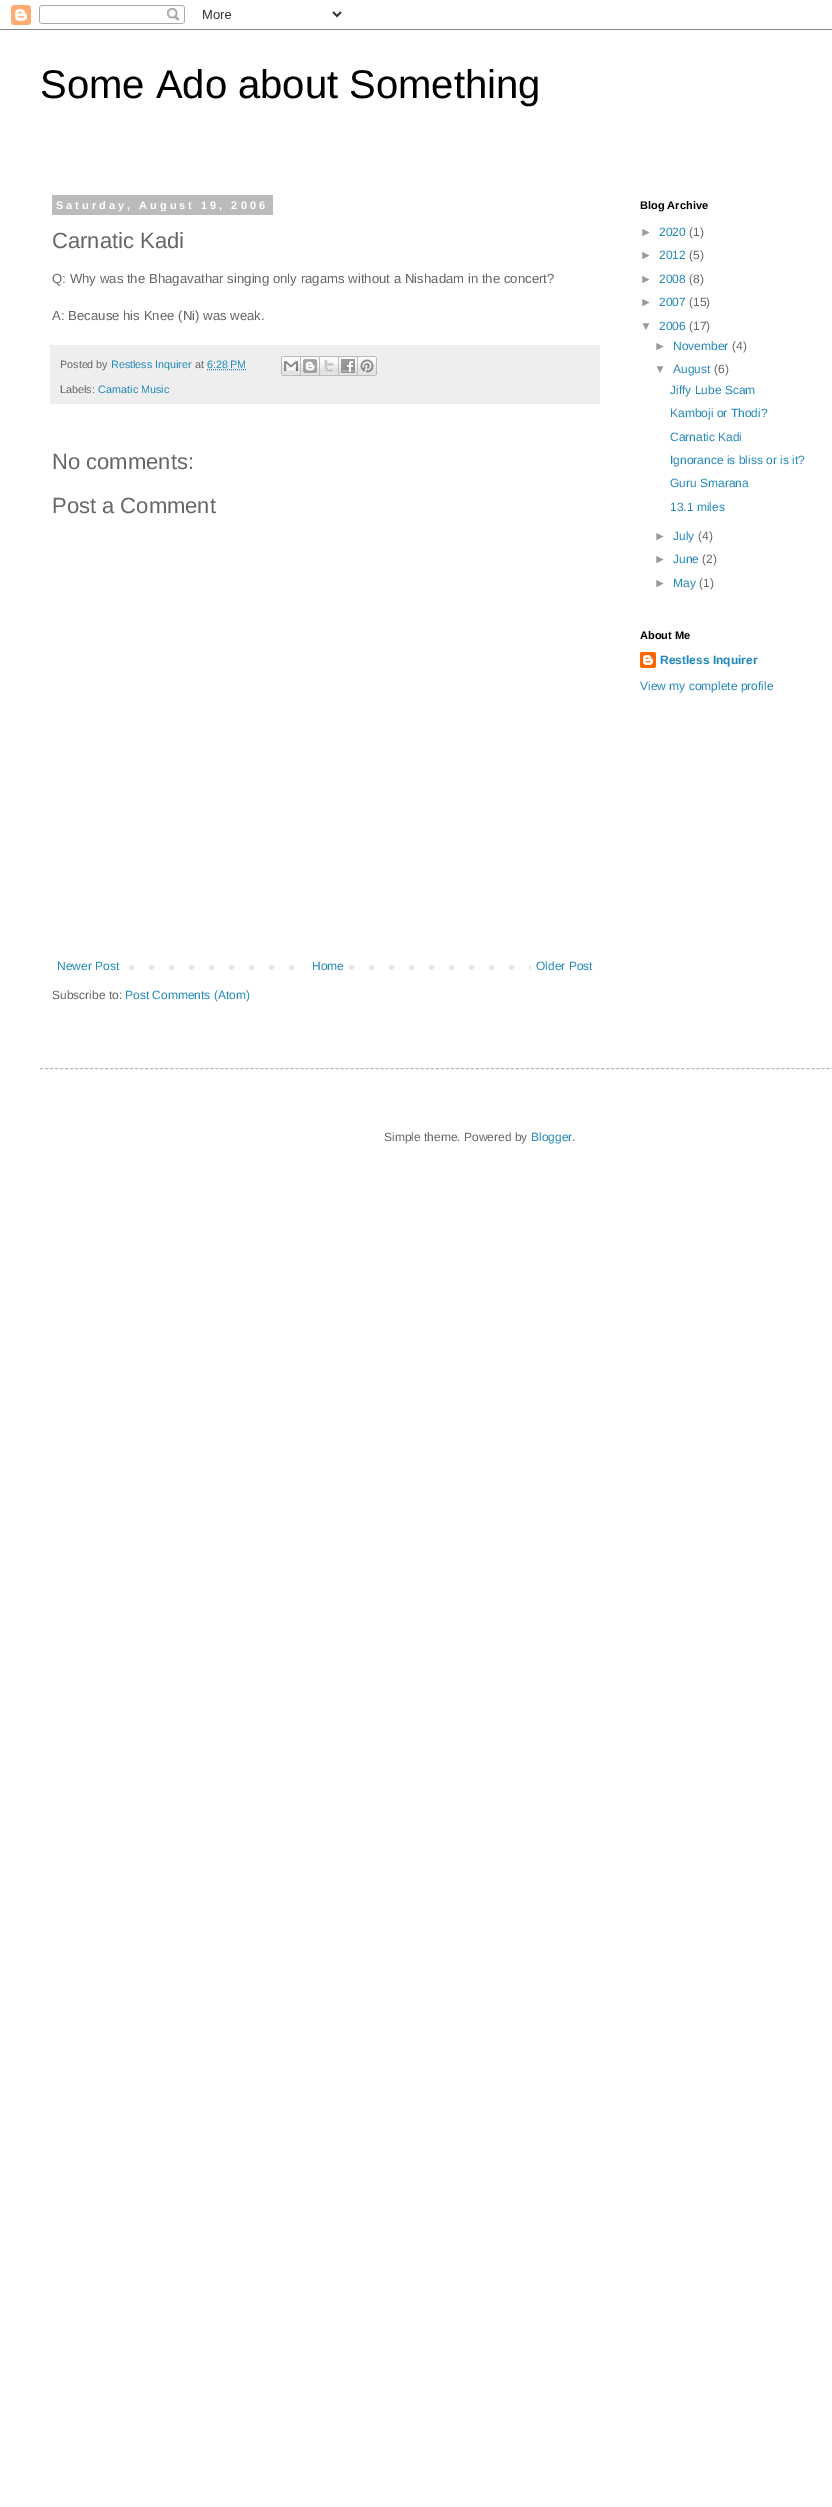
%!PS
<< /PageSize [832 2507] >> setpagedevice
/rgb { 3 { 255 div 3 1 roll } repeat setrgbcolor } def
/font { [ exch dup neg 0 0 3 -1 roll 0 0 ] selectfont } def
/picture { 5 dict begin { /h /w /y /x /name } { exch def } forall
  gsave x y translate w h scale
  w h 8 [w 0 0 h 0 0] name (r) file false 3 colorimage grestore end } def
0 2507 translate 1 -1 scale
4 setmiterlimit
255 255 255 rgb
0 0 832 2507 rectfill
(img/1.rgb) 0 5 832 25 picture
187 187 187 rgb
52 195 221 20 rectfill
238 238 238 rgb
50 345 550 59 rectfill
34 136 187 rgb
[1 1] 0 setdash
207 369.5 moveto 246.5 369.5 lineto stroke
(img/2.rgb) 281 356 20 20 picture
(img/3.rgb) 301 356 19 20 picture
(img/4.rgb) 320 356 19 20 picture
(img/5.rgb) 339 356 19 20 picture
(img/6.rgb) 358 356 19 20 picture
(img/7.rgb) 129 965 402 5 picture
255 255 255 rgb
309 965 26 5 rectfill
(img/8.rgb) 640 652 16 16 picture
187 187 187 rgb
[3 2.01] 0 setdash
40 1068.5 moveto 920 1068.5 lineto stroke
/LiberationSans-Regular 40 font
0 0 0 rgb
40 98 moveto (Some Ado about Something) show
/LiberationSans-Bold 11 font
255 255 255 rgb
56 209 moveto 3 0 (Saturday, August 19, 2006) ashow
/LiberationSans-Regular 22 font
102 102 102 rgb
52 248 moveto (Carnatic Kadi) show
/LiberationSans-Regular 13.2 font
52 283 moveto (Q: Why was the Bhagavathar singing only ragams without a Nishadam in the concert?) show
52 320 moveto (A: Because his Knee \(Ni\) was weak.) show
/LiberationSans-Regular 10.75 font
60 368 moveto (Posted by) show
34 136 187 rgb
111 368 moveto (Restless Inquirer) show
102 102 102 rgb
195 368 moveto (at) show
34 136 187 rgb
207 368 moveto (6:28 PM) show
102 102 102 rgb
60 393 moveto (Labels:) show
34 136 187 rgb
98 393 moveto (Carnatic Music) show
/LiberationSans-Regular 22 font
102 102 102 rgb
52 469 moveto (No comments:) show
52 513 moveto (Post a Comment) show
/LiberationSans-Regular 12 font
34 136 187 rgb
[
  [(Newer Post) 57 970]
  [(Home) 312 970]
  [(Older Post) 536 970]
] { aload pop moveto show } forall
102 102 102 rgb
52 999 moveto (Subscribe to:) show
34 136 187 rgb
125 999 moveto (Post Comments \(Atom\)) show
/LiberationSans-Bold 11 font
0 0 0 rgb
640 209 moveto (Blog Archive) show
/LiberationSans-Regular 12 font
153 153 153 rgb
640 236 moveto (►) show
34 136 187 rgb
659 236 moveto (2020) show
102 102 102 rgb
689 236 moveto (\(1\)) show
153 153 153 rgb
640 259 moveto (►) show
34 136 187 rgb
659 259 moveto (2012) show
102 102 102 rgb
689 259 moveto (\(5\)) show
153 153 153 rgb
640 283 moveto (►) show
34 136 187 rgb
659 283 moveto (2008) show
102 102 102 rgb
689 283 moveto (\(8\)) show
153 153 153 rgb
640 306 moveto (►) show
34 136 187 rgb
659 306 moveto (2007) show
102 102 102 rgb
689 306 moveto (\(15\)) show
153 153 153 rgb
640 330 moveto (▼) show
34 136 187 rgb
659 330 moveto (2006) show
102 102 102 rgb
689 330 moveto (\(17\)) show
153 153 153 rgb
654 350 moveto (►) show
34 136 187 rgb
673 350 moveto (November) show
102 102 102 rgb
732 350 moveto (\(4\)) show
153 153 153 rgb
654 373 moveto (▼) show
34 136 187 rgb
673 373 moveto (August) show
102 102 102 rgb
714 373 moveto (\(6\)) show
34 136 187 rgb
[
  [(Jiffy Lube Scam) 670 394]
  [(Kamboji or Thodi?) 670 417]
  [(Carnatic Kadi) 670 441]
  [(Ignorance is bliss or is it?) 670 464]
  [(Guru Smarana) 670 487]
  [(13.1 miles) 670 511]
] { aload pop moveto show } forall
153 153 153 rgb
654 540 moveto (►) show
34 136 187 rgb
673 540 moveto (July) show
102 102 102 rgb
698 540 moveto (\(4\)) show
153 153 153 rgb
654 563 moveto (►) show
34 136 187 rgb
673 563 moveto (June) show
102 102 102 rgb
702 563 moveto (\(2\)) show
153 153 153 rgb
654 587 moveto (►) show
34 136 187 rgb
673 587 moveto (May) show
102 102 102 rgb
699 587 moveto (\(1\)) show
/LiberationSans-Bold 11 font
0 0 0 rgb
640 639 moveto (About Me) show
/LiberationSans-Bold 12 font
34 136 187 rgb
660 664 moveto (Restless Inquirer) show
/LiberationSans-Regular 12 font
640 690 moveto (View my complete profile) show
102 102 102 rgb
384 1141 moveto (Simple theme. Powered by) show
34 136 187 rgb
531 1141 moveto (Blogger) show
102 102 102 rgb
572 1141 moveto (.) show
showpage
